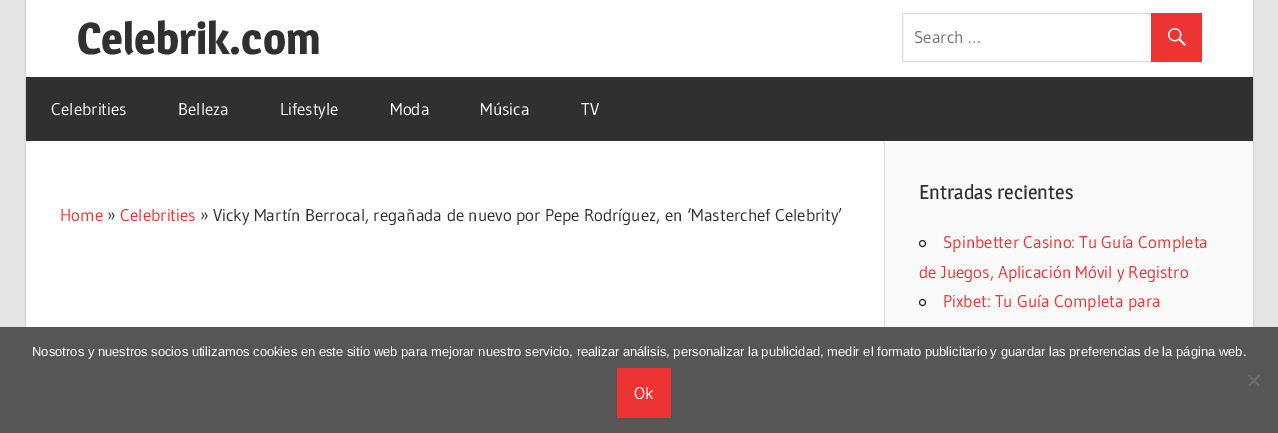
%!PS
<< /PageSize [1278 433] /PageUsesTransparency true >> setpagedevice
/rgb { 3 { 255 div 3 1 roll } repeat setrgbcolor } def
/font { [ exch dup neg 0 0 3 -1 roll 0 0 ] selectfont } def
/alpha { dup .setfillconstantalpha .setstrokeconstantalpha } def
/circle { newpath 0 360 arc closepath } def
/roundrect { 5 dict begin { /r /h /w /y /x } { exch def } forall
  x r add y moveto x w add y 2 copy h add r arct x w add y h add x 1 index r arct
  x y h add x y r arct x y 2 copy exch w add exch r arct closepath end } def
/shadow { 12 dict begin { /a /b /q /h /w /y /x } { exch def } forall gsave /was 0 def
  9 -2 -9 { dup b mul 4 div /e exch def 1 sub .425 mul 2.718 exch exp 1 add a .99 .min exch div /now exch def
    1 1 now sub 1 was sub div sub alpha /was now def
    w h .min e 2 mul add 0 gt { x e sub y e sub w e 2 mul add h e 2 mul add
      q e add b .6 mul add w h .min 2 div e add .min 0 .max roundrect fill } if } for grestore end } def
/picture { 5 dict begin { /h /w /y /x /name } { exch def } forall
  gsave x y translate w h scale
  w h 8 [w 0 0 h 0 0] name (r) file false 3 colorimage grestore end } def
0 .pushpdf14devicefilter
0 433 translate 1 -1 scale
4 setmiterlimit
229 229 229 rgb
0 0 1278 433 rectfill
170 170 170 rgb
26 0 1227 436 0 1 1 shadow
255 255 255 rgb
26 0 1227 327 rectfill
221 221 221 rgb
902.5 13.5 299 48 rectstroke
238 51 51 rgb
1151 13 51 49 rectfill
(img/1.rgb) 1168 28 18 18 picture
[
  [26 77 1227 64 48 48 48]
  [885 141 367 186 250 250 250]
  [884 141 1 186 221 221 221]
] { aload pop rgb rectfill } forall
48 48 48 rgb
922.5 243.5 3 circle stroke
922.5 302.5 3 circle stroke
86 86 86 rgb
0 327 1278 106 rectfill
107 107 107 rgb
1258.5 374.5 moveto 1260 376 lineto 1249.5 386.5 lineto 1248 385 lineto closepath fill
1248 376 moveto 1249.5 374.5 lineto 1260 385 lineto 1258.5 386.5 lineto closepath fill
238 51 51 rgb
617 368 54 50 rectfill
/Magra-Bold 44 font
48 48 48 rgb
77 54 moveto (Celebrik.com) show
/Gudea-Regular 17 font
117 117 117 rgb
914 43 moveto (Search …) show
255 255 255 rgb
[
  [(Celebrities) 51 115]
  [(Belleza) 178 115]
  [(Lifestyle) 280 115]
  [(Moda) 390 115]
  [(Música) 480 115]
  [(TV) 581 115]
] { aload pop moveto show } forall
238 51 51 rgb
60 221 moveto (Home) show
48 48 48 rgb
107 221 moveto (») show
238 51 51 rgb
120 221 moveto (Celebrities) show
48 48 48 rgb
200 221 moveto (» Vicky Martín Berrocal, regañada de nuevo por Pepe Rodríguez, en ‘Masterchef Celebrity’) show
/Magra-Regular 20 font
919 199 moveto (Entradas recientes) show
/Gudea-Regular 17 font
238 51 51 rgb
[
  [(Spinbetter Casino: Tu Guía Completa) 943 248]
  [(de Juegos, Aplicación Móvil y Registro) 919 278]
  [(Pixbet: Tu Guía Completa para) 943 307]
] { aload pop moveto show } forall
/LiberationSans-Regular 13 font
255 255 255 rgb
32 356 moveto (Nosotros y nuestros socios utilizamos cookies en este sitio web para mejorar nuestro servicio, realizar análisis, personalizar la publicidad, medir el formato publicitario y guardar las preferencias de la página web.) show
/Gudea-Regular 17 font
634 399 moveto (Ok) show
.poppdf14devicefilter showpage
